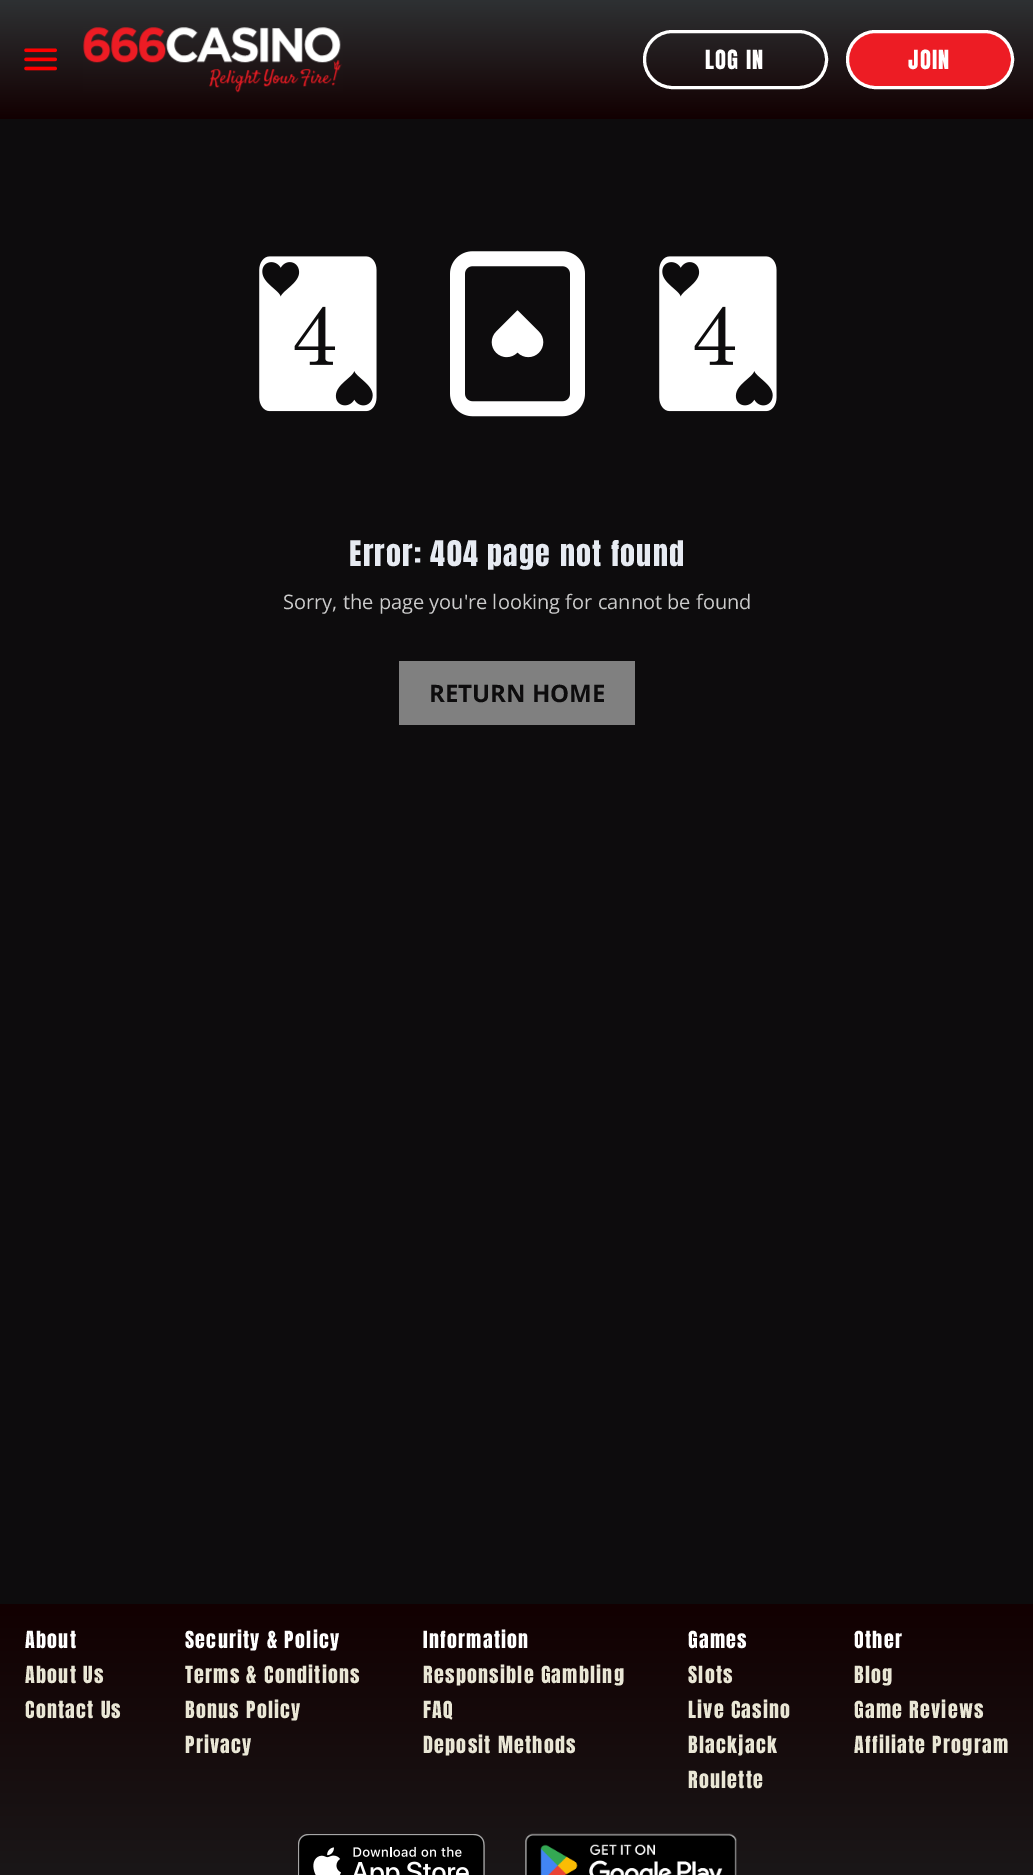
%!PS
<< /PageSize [1033 1875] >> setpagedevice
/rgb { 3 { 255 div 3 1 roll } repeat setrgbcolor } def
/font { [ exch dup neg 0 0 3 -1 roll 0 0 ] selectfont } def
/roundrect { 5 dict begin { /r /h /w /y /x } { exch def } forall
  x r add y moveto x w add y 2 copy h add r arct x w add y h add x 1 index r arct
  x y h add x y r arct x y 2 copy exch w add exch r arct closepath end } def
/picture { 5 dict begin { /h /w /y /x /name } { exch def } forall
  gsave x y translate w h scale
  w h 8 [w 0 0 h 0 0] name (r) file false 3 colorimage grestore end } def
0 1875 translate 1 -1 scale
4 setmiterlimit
13 12 13 rgb
0 0 1033 1875 rectfill
gsave 0 0 moveto 1033 0 lineto 1033 119 lineto 0 119 lineto closepath clip newpath
<< /ShadingType 2 /ColorSpace /DeviceRGB /Coords [517 0 517 119] /Extend [true true] /Function << /FunctionType 2 /Domain [0 1] /C0 [0.18 0.192 0.2] /C1 [0.071 0 0.004] /N 1 >> >> shfill grestore
(img/1.rgb) 24 48 33 23 picture
(img/2.rgb) 83 27 260 66 picture
255 255 255 rgb
3 setlinewidth
644.5 31.5 182 56 28 roundrect stroke
237 28 36 rgb
847.5 31.5 165 56 28 roundrect gsave fill grestore
255 255 255 rgb
stroke
(img/3.rgb) 259 256 118 156 picture
(img/4.rgb) 450 251 135 166 picture
(img/3.rgb) 659 256 118 156 picture
128 128 128 rgb
399 661 236 64 rectfill
gsave 0 1604 moveto 1033 1604 lineto 1033 1875 lineto 0 1875 lineto closepath clip newpath
<< /ShadingType 2 /ColorSpace /DeviceRGB /Coords [517 1604 517 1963] /Extend [true true] /Function << /FunctionType 2 /Domain [0 1] /C0 [0.071 0 0.004] /C1 [0.114 0.122 0.125] /N 1 >> >> shfill grestore
(img/5.rgb) 298 1834 187 41 picture
(img/6.rgb) 525 1833 212 42 picture
/Anton-Regular 22.5 font
255 255 255 rgb
705 69 moveto 1.25 0 (LOG IN) ashow
908 69 moveto 1.25 0 (JOIN) ashow
/Anton-Regular 30 font
231 235 242 rgb
349 566 moveto 1.25 0 (Error: 404 page not found) ashow
/OpenSans-Regular 20 font
204 204 204 rgb
283 609 moveto (Sorry, the page you're looking for cannot be found) show
/OpenSans-Bold 24 font
13 12 13 rgb
429 702 moveto (RETURN HOME) show
/Anton-Regular 20 font
255 255 255 rgb
25 1648 moveto 1.25 0 (About) ashow
234 231 214 rgb
25 1683 moveto 1.25 0 (About Us) ashow
25 1718 moveto 1.25 0 (Contact Us) ashow
255 255 255 rgb
185 1648 moveto 1.25 0 (Security & Policy) ashow
234 231 214 rgb
185 1683 moveto 1.25 0 (Terms & Conditions) ashow
185 1718 moveto 1.25 0 (Bonus Policy) ashow
185 1753 moveto 1.25 0 (Privacy) ashow
255 255 255 rgb
423 1648 moveto 1.25 0 (Information) ashow
234 231 214 rgb
423 1683 moveto 1.25 0 (Responsible Gambling) ashow
423 1718 moveto 1.25 0 (FAQ) ashow
423 1753 moveto 1.25 0 (Deposit Methods) ashow
255 255 255 rgb
688 1648 moveto 1.25 0 (Games) ashow
234 231 214 rgb
688 1683 moveto 1.25 0 (Slots) ashow
688 1718 moveto 1.25 0 (Live Casino) ashow
688 1753 moveto 1.25 0 (Blackjack) ashow
688 1788 moveto 1.25 0 (Roulette) ashow
255 255 255 rgb
854 1648 moveto 1.25 0 (Other) ashow
234 231 214 rgb
854 1683 moveto 1.25 0 (Blog) ashow
854 1718 moveto 1.25 0 (Game Reviews) ashow
854 1753 moveto 1.25 0 (Affiliate Program) ashow
showpage
